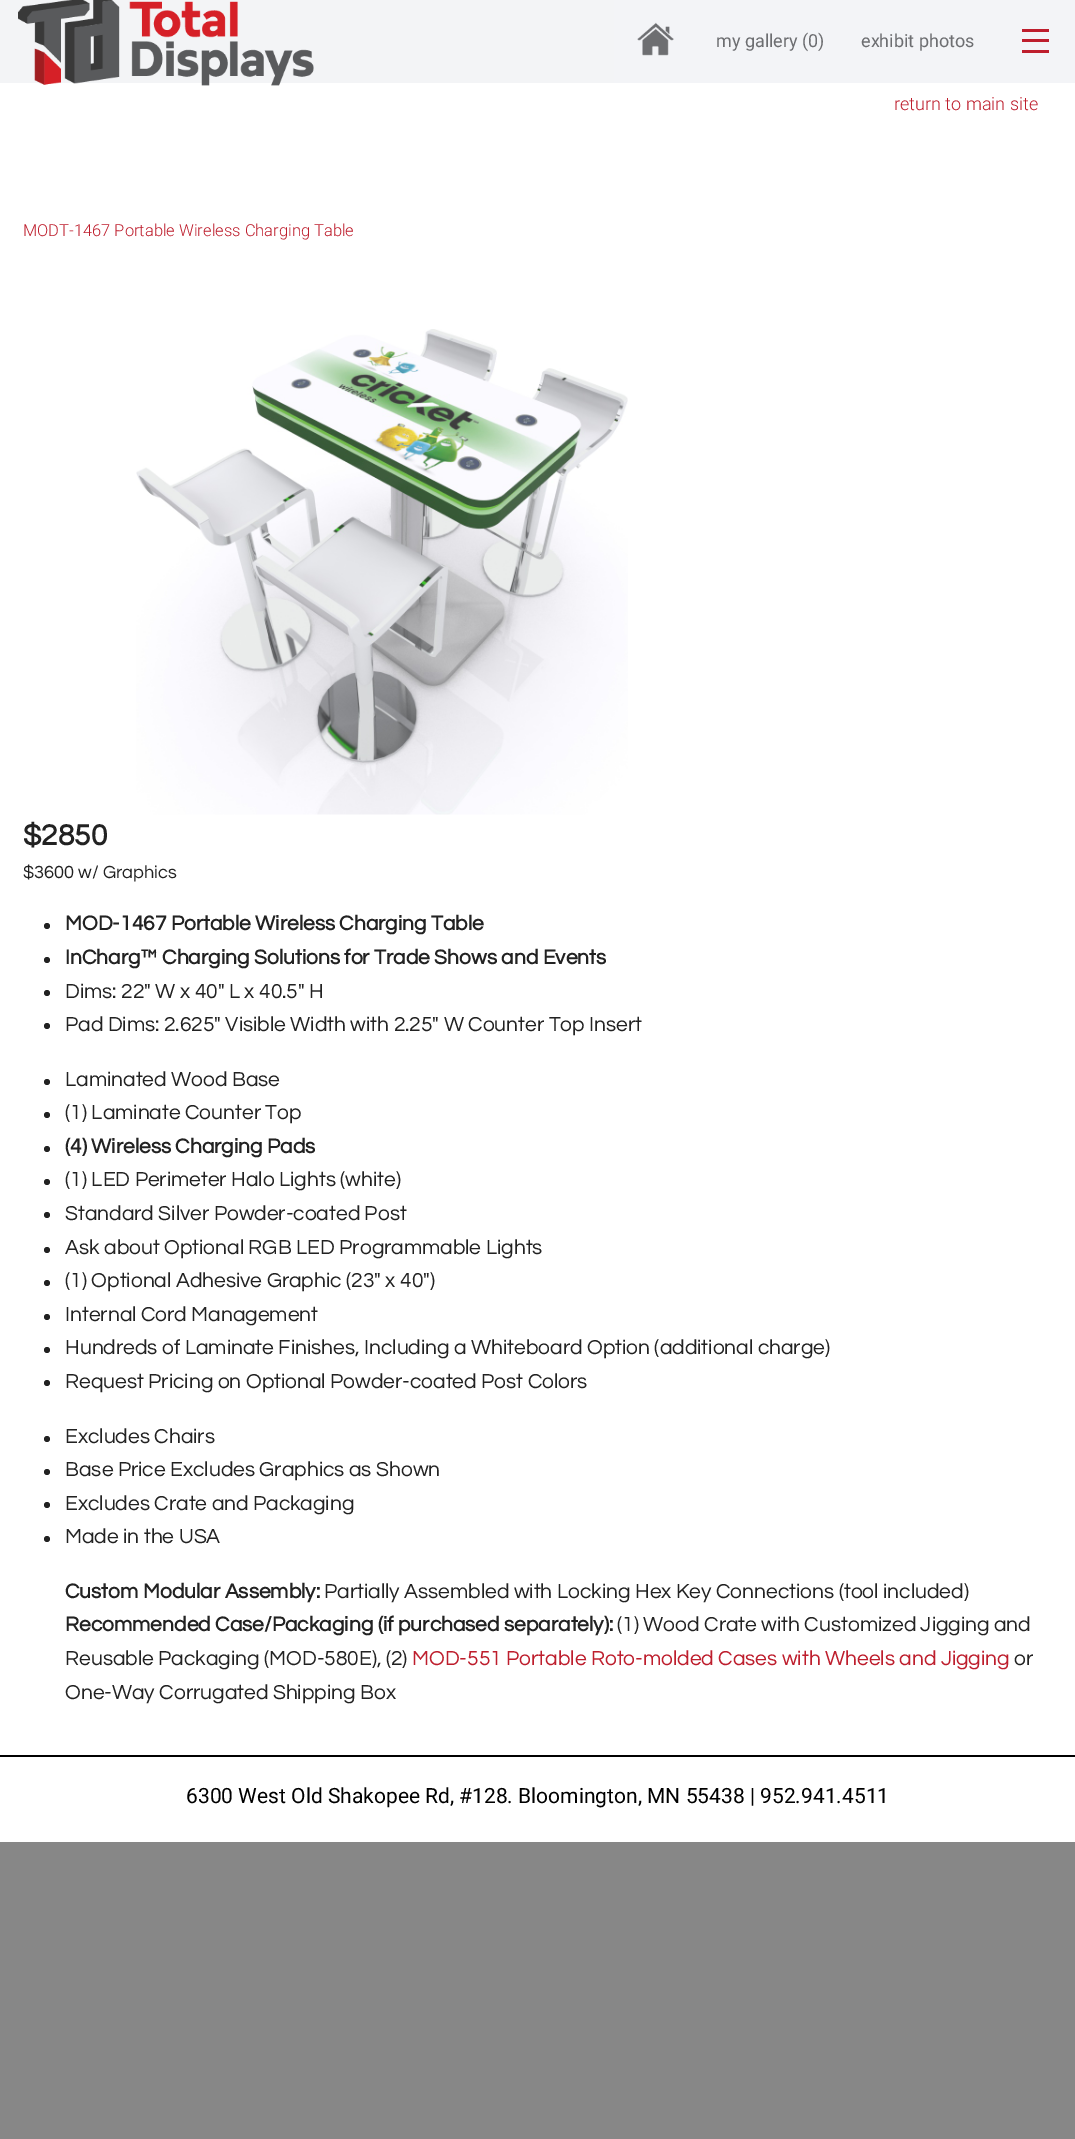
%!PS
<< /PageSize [1075 2139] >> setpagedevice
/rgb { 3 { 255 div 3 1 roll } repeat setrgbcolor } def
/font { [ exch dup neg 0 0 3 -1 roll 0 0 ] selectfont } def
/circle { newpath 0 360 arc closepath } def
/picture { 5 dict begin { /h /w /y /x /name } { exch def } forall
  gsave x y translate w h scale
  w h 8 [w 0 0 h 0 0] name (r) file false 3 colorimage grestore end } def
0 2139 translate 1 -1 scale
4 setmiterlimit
135 135 135 rgb
0 0 1075 2139 rectfill
255 255 255 rgb
0 83 1075 1759 rectfill
243 244 246 rgb
0 0 614 83 rectfill
(img/1.rgb) 18 0 296 86 picture
243 244 247 rgb
614 0 461 83 rectfill
(img/2.rgb) 637 22 37 34 picture
[
  [1022 50 27 3 190 30 45]
  [1022 39 27 3 190 30 45]
  [1022 29 27 3 190 30 45]
] { aload pop rgb rectfill } forall
(img/3.rgb) 136 329 492 486 picture
34 34 34 rgb
47 926 3 circle fill
47 960 3 circle fill
47 993 3 circle fill
47 1026 3 circle fill
47 1082 3 circle fill
47 1115 3 circle fill
47 1149 3 circle fill
47 1182 3 circle fill
47 1215 3 circle fill
47 1250 3 circle fill
47 1283 3 circle fill
47 1317 3 circle fill
47 1350 3 circle fill
47 1383 3 circle fill
47 1439 3 circle fill
47 1472 3 circle fill
47 1505 3 circle fill
47 1539 3 circle fill
0 0 0 rgb
0 1755 1075 2 rectfill
/Roboto-Regular 18 font
109 110 113 rgb
716 47 moveto (my gallery \(0\)) show
861 47 moveto (exhibit photos) show
/Roboto-Light 18 font
190 30 45 rgb
894 110 moveto (return to main site) show
/Roboto-Light 16.5 font
23 236 moveto (MODT-1467 Portable Wireless Charging Table) show
/Questrial-Bold 30 font
34 34 34 rgb
23 845 moveto ($2850) show
/Questrial-Regular 18.25 font
23 878 moveto ($3600 w/ Graphics) show
/Questrial-Bold 21 font
65 930 moveto (MOD-1467 Portable Wireless Charging Table) show
65 964 moveto (InCharg™ Charging Solutions for Trade Shows and Events) show
/Questrial-Regular 21 font
[
  [(Dims: 22" W x 40" L x 40.5" H) 65 998]
  [(Pad Dims: 2.625" Visible Width with 2.25" W Counter Top Insert) 65 1031]
  [(Laminated Wood Base) 65 1086]
  [(\(1\) Laminate Counter Top) 65 1119]
] { aload pop moveto show } forall
/Questrial-Bold 21 font
65 1153 moveto (\(4\) Wireless Charging Pads) show
/Questrial-Regular 21 font
[
  [(\(1\) LED Perimeter Halo Lights \(white\)) 65 1186]
  [(Standard Silver Powder-coated Post) 65 1220]
  [(Ask about Optional RGB LED Programmable Lights) 65 1254]
  [(\(1\) Optional Adhesive Graphic \(23" x 40"\)) 65 1287]
  [(Internal Cord Management) 65 1321]
  [(Hundreds of Laminate Finishes, Including a Whiteboard Option \(additional charge\)) 65 1354]
  [(Request Pricing on Optional Powder-coated Post Colors) 65 1388]
  [(Excludes Chairs) 65 1443]
  [(Base Price Excludes Graphics as Shown) 65 1476]
  [(Excludes Crate and Packaging) 65 1510]
  [(Made in the USA) 65 1543]
] { aload pop moveto show } forall
/Questrial-Bold 21 font
65 1598 moveto (Custom Modular Assembly:) show
/Questrial-Regular 21 font
324 1598 moveto (Partially Assembled with Locking Hex Key Connections \(tool included\)) show
/Questrial-Bold 21 font
65 1631 moveto (Recommended Case/Packaging \(if purchased separately\):) show
/Questrial-Regular 21 font
617 1631 moveto (\(1\) Wood Crate with Customized Jigging and) show
65 1665 moveto (Reusable Packaging \(MOD-580E\), \(2\)) show
190 30 45 rgb
412 1665 moveto (MOD-551 Portable Roto-molded Cases with Wheels and Jigging) show
34 34 34 rgb
1014 1665 moveto (or) show
65 1699 moveto (One-Way Corrugated Shipping Box) show
/Roboto-Regular 21 font
0 0 0 rgb
186 1803 moveto (6300 West Old Shakopee Rd, #128. Bloomington, MN 55438 | 952.941.4511) show
showpage
